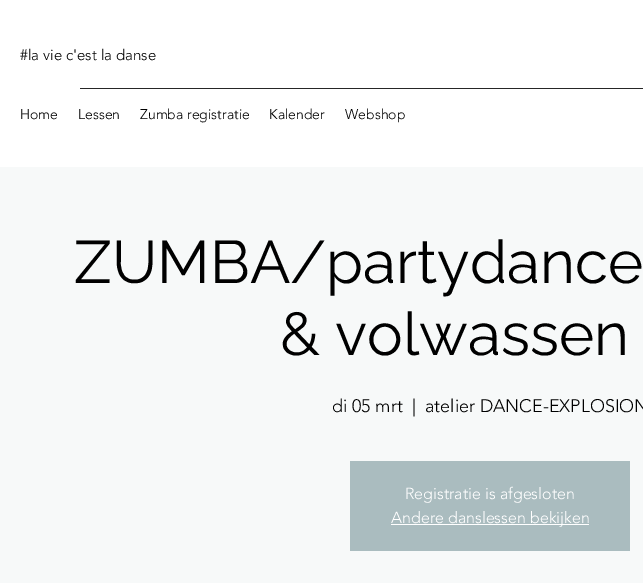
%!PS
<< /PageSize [643 583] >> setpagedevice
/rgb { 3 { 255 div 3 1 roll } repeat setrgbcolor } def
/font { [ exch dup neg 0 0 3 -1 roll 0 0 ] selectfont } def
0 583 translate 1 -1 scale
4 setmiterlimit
247 249 249 rgb
0 0 643 583 rectfill
[
  [0 0 643 167 255 255 255]
  [80 88 563 1 38 38 38]
  [350 461 280 90 170 188 191]
  [391 524 198 1 255 255 255]
] { aload pop rgb rectfill } forall
/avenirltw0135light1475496-Light 15 font
0 0 0 rgb
20 60 moveto (#la vie c'est la danse) show
/avenirltw0135light1475496-Light 14 font
[
  [(Home) 20 119]
  [(Lessen) 78 119]
  [(Zumba registratie) 140 119]
  [(Kalender) 269 119]
  [(Webshop) 345 119]
] { aload pop moveto show } forall
/Raleway-Regular 60 font
74 283 moveto (ZUMBA/partydance) show
280 355 moveto (& volwassen) show
/avenirltw0135light1475496-Light 18 font
[
  [(di 05 mrt) 332 412]
  [(|) 412 412]
  [(atelier DANCE-EXPLOSION) 425 412]
] { aload pop moveto show } forall
/avenirltw0135light1475496-Light 16 font
255 255 255 rgb
405 499 moveto (Registratie is afgesloten) show
391 523 moveto (Andere danslessen bekijken) show
showpage
